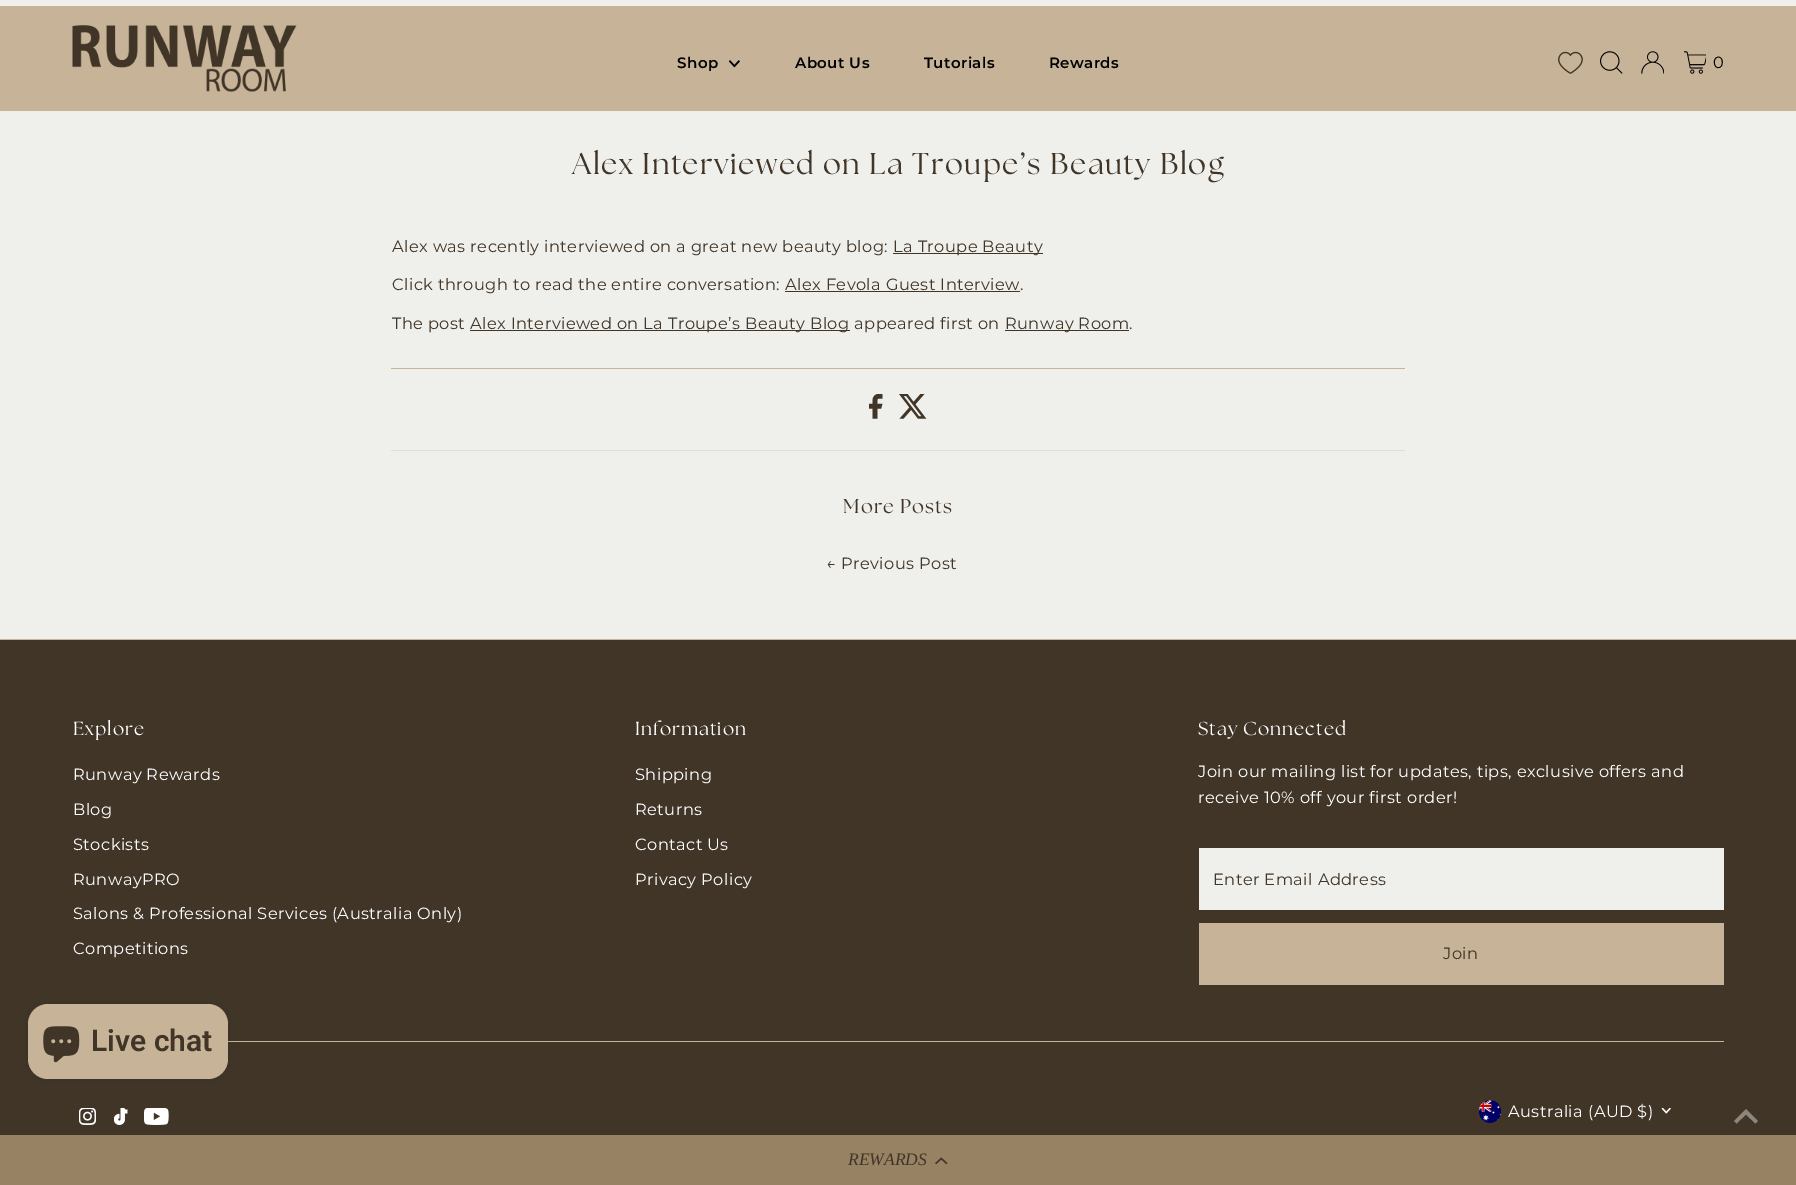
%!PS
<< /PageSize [1796 1185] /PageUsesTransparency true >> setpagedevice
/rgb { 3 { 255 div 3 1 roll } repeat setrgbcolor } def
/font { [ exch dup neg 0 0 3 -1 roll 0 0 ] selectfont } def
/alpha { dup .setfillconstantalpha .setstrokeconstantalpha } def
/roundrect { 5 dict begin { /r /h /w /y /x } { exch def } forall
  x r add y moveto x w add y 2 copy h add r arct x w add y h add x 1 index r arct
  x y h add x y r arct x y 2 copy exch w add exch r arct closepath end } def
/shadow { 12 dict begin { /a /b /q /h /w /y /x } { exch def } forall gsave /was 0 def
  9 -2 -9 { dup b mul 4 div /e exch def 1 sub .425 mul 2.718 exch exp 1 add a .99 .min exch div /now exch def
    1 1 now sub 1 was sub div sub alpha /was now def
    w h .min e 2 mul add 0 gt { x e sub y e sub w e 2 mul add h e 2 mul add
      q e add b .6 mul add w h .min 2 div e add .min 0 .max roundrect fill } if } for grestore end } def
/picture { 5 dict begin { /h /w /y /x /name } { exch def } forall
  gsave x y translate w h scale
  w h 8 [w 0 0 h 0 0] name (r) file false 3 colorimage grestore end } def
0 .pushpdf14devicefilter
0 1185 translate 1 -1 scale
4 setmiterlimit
239 239 236 rgb
0 0 1796 1185 rectfill
198 179 152 rgb
0 6 1796 105 rectfill
(img/1.rgb) 72 25 225 67 picture
(img/2.rgb) 729 60 11 8 picture
(img/3.rgb) 1558 51 25 23 picture
(img/4.rgb) 1600 51 23 23 picture
(img/5.rgb) 1641 51 23 23 picture
(img/6.rgb) 1684 51 22 23 picture
[
  [391 368 1014 1 198 179 152]
  [893 253 150 1 64 53 39]
  [785 291 235 1 64 53 39]
  [470 330 380 1 64 53 39]
  [1005 330 124 1 64 53 39]
  [391 450 1014 1 221 221 221]
] { aload pop rgb rectfill } forall
(img/7.rgb) 869 394 14 25 picture
(img/8.rgb) 899 394 28 25 picture
[
  [0 640 1796 495 64 53 39]
  [0 639 1796 1 198 179 152]
  [1199 848 525 62 239 239 236]
  [1199 923 525 62 198 179 152]
  [228 1041 1496 1 198 179 152]
] { aload pop rgb rectfill } forall
(img/9.rgb) 79 1108 17 17 picture
(img/10.rgb) 114 1108 14 17 picture
(img/11.rgb) 144 1108 25 17 picture
(img/12.rgb) 1479 1100 22 23 picture
(img/13.rgb) 1661 1108 10 6 picture
140 134 125 rgb
1746 1109 moveto 1734 1121 lineto 1736.5 1123.5 lineto 1746 1114.5 lineto 1755.5 1123.5 lineto 1758 1121 lineto closepath fill
0 0 0 rgb
28 1004 200 75 20 3 0.15 shadow
198 179 152 rgb
28 1004 200 75 20 roundrect fill
(img/14.rgb) 43 1026 37 37 picture
151 130 99 rgb
0 1135 1796 50 rectfill
(img/15.rgb) 935 1157 13 8 picture
/Montserrat-SemiBold 15 font
0 0 0 rgb
677 68 moveto 0.4 0 (Shop) ashow
795 68 moveto 0.4 0 (About Us) ashow
924 68 moveto 0.4 0 (Tutorials) ashow
1049 68 moveto 0.4 0 (Rewards) ashow
/Montserrat-Thin 16.25 font
1713 68 moveto 0.4 0 (0) ashow
/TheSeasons-Regular 30 font
64 53 39 rgb
572 174 moveto 1.5 0 (Alex Interviewed on La Troupe’s Beauty Blog) ashow
/Montserrat-Thin 16.25 font
392 252 moveto 0.4 0 (Alex was recently interviewed on a great new beauty blog:) ashow
893 252 moveto 0.4 0 (La Troupe Beauty) ashow
392 290 moveto 0.4 0 (Click through to read the entire conversation: Alex Fevola Guest Interview.) ashow
392 329 moveto 0.4 0 (The post) ashow
470 329 moveto 0.4 0 (Alex Interviewed on La Troupe’s Beauty Blog appeared first on) ashow
1005 329 moveto 0.4 0 (Runway Room.) ashow
/TheSeasons-Regular 20 font
843 513 moveto 1 0 (More Posts) ashow
/Montserrat-Regular 16.25 font
826 569 moveto 0.4 0 (←) ashow
/Montserrat-Thin 16.25 font
841 569 moveto 0.4 0 (Previous Post) ashow
/TheSeasons-Regular 18.75 font
255 255 255 rgb
73 735 moveto 1 0 (Explore) ashow
/Montserrat-Thin 16.25 font
73 780 moveto 0.4 0 (Runway Rewards) ashow
73 815 moveto 0.4 0 (Blog) ashow
73 850 moveto 0.4 0 (Stockists) ashow
73 885 moveto 0.4 0 (RunwayPRO) ashow
73 919 moveto 0.4 0 (Salons & Professional Services \(Australia Only\)) ashow
73 954 moveto 0.4 0 (Competitions) ashow
/TheSeasons-Regular 18.75 font
635 735 moveto 1 0 (Information) ashow
/Montserrat-Thin 16.25 font
635 780 moveto 0.4 0 (Shipping) ashow
635 815 moveto 0.4 0 (Returns) ashow
635 850 moveto 0.4 0 (Contact Us) ashow
635 885 moveto 0.4 0 (Privacy Policy) ashow
/TheSeasons-Regular 18.75 font
1198 735 moveto 1 0 (Stay Connected) ashow
/Montserrat-Thin 16.25 font
1198 777 moveto 0.4 0 (Join our mailing list for updates, tips, exclusive offers and) ashow
1198 803 moveto 0.4 0 (receive 10% off your first order!) ashow
64 53 39 rgb
1213 885 moveto 0.4 0 (Enter Email Address) ashow
1443 959 moveto 0.4 0 (Join) ashow
255 255 255 rgb
1508 1117 moveto 0.4 0 (Australia \(AUD $\)) ashow
/Roboto-SemiBold 30 font
64 53 39 rgb
91 1051 moveto (Live chat) show
/LiberationSerif-Italic 17.5 font
848 1165 moveto (REWARDS) show
.poppdf14devicefilter showpage
